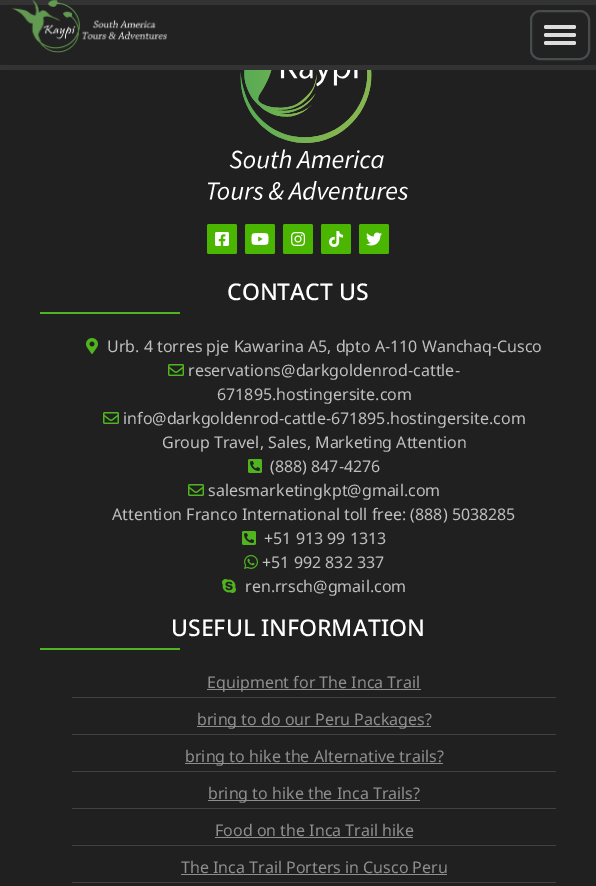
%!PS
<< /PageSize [596 886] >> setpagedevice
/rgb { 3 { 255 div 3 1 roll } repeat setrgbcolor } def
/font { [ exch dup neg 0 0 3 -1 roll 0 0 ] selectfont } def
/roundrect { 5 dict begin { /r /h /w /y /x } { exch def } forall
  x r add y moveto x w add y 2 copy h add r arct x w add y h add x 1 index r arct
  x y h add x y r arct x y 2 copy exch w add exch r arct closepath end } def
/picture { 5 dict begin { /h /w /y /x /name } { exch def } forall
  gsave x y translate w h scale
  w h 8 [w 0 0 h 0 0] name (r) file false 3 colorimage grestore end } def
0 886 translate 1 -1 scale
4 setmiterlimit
32 32 32 rgb
0 0 596 886 rectfill
51 51 51 rgb
0 0 596 70 rectfill
34 34 34 rgb
0 5 596 60 2 roundrect fill
(img/1.rgb) 12 0 155 53 picture
73 76 79 rgb
2 setlinewidth
531 11 58 48 9 roundrect stroke
221 221 221 rgb
544 25 32 4 2 roundrect fill
544 33 32 4 2 roundrect fill
544 41 32 4 2 roundrect fill
(img/2.rgb) 207 70 201 130 picture
74 182 0 rgb
207 224 30 30 2 roundrect fill
(img/3.rgb) 215 232 14 14 picture
245 224 30 30 2 roundrect fill
(img/4.rgb) 251 233 18 12 picture
283 224 30 30 2 roundrect fill
(img/5.rgb) 291 232 15 14 picture
321 224 30 30 2 roundrect fill
(img/6.rgb) 329 231 14 16 picture
359 224 30 30 2 roundrect fill
(img/7.rgb) 366 232 16 14 picture
79 180 31 rgb
40 312 140 2 rectfill
(img/8.rgb) 86 338 12 16 picture
(img/9.rgb) 168 364 16 12 picture
(img/9.rgb) 103 412 16 12 picture
(img/10.rgb) 248 459 14 14 picture
(img/9.rgb) 188 484 16 12 picture
(img/10.rgb) 242 531 14 14 picture
(img/11.rgb) 244 555 14 14 picture
(img/12.rgb) 222 579 14 14 picture
[
  [40 648 140 2 79 180 31]
  [72 697 484 1 65 65 65]
  [207 689 214 1 142 142 142]
  [72 734 484 1 65 65 65]
  [197 726 234 1 142 142 142]
  [72 771 484 1 65 65 65]
  [185 763 258 1 142 142 142]
  [72 808 484 1 65 65 65]
  [208 800 212 1 142 142 142]
  [72 845 484 1 65 65 65]
  [215 837 198 1 142 142 142]
  [72 882 484 1 65 65 65]
  [181 874 266 1 142 142 142]
] { aload pop rgb rectfill } forall
/NotoSans-Medium 23 font
255 255 255 rgb
227 300 moveto (CONTACT US) show
/NotoSans-Regular 16 font
191 191 191 rgb
[
  [(Urb. 4 torres pje Kawarina A5, dpto A-110 Wanchaq-Cusco) 107 352]
  [(reservations@darkgoldenrod-cattle-) 188 376]
  [(671895.hostingersite.com) 217 400]
  [(info@darkgoldenrod-cattle-671895.hostingersite.com) 123 424]
  [(Group Travel, Sales, Marketing Attention) 162 448]
  [(\(888\) 847-4276) 270 472]
  [(salesmarketingkpt@gmail.com) 208 496]
  [(Attention Franco International toll free: \(888\) 5038285) 112 520]
  [(+51 913 99 1313) 264 544]
  [(+51 992 832 337) 262 568]
  [(ren.rrsch@gmail.com) 245 592]
] { aload pop moveto show } forall
/NotoSans-Medium 23 font
255 255 255 rgb
171 636 moveto (USEFUL INFORMATION) show
/NotoSans-Regular 16 font
142 142 142 rgb
[
  [(Equipment for The Inca Trail) 207 688]
  [(bring to do our Peru Packages?) 197 725]
  [(bring to hike the Alternative trails?) 185 762]
  [(bring to hike the Inca Trails?) 208 799]
  [(Food on the Inca Trail hike) 215 836]
  [(The Inca Trail Porters in Cusco Peru) 181 873]
] { aload pop moveto show } forall
showpage
